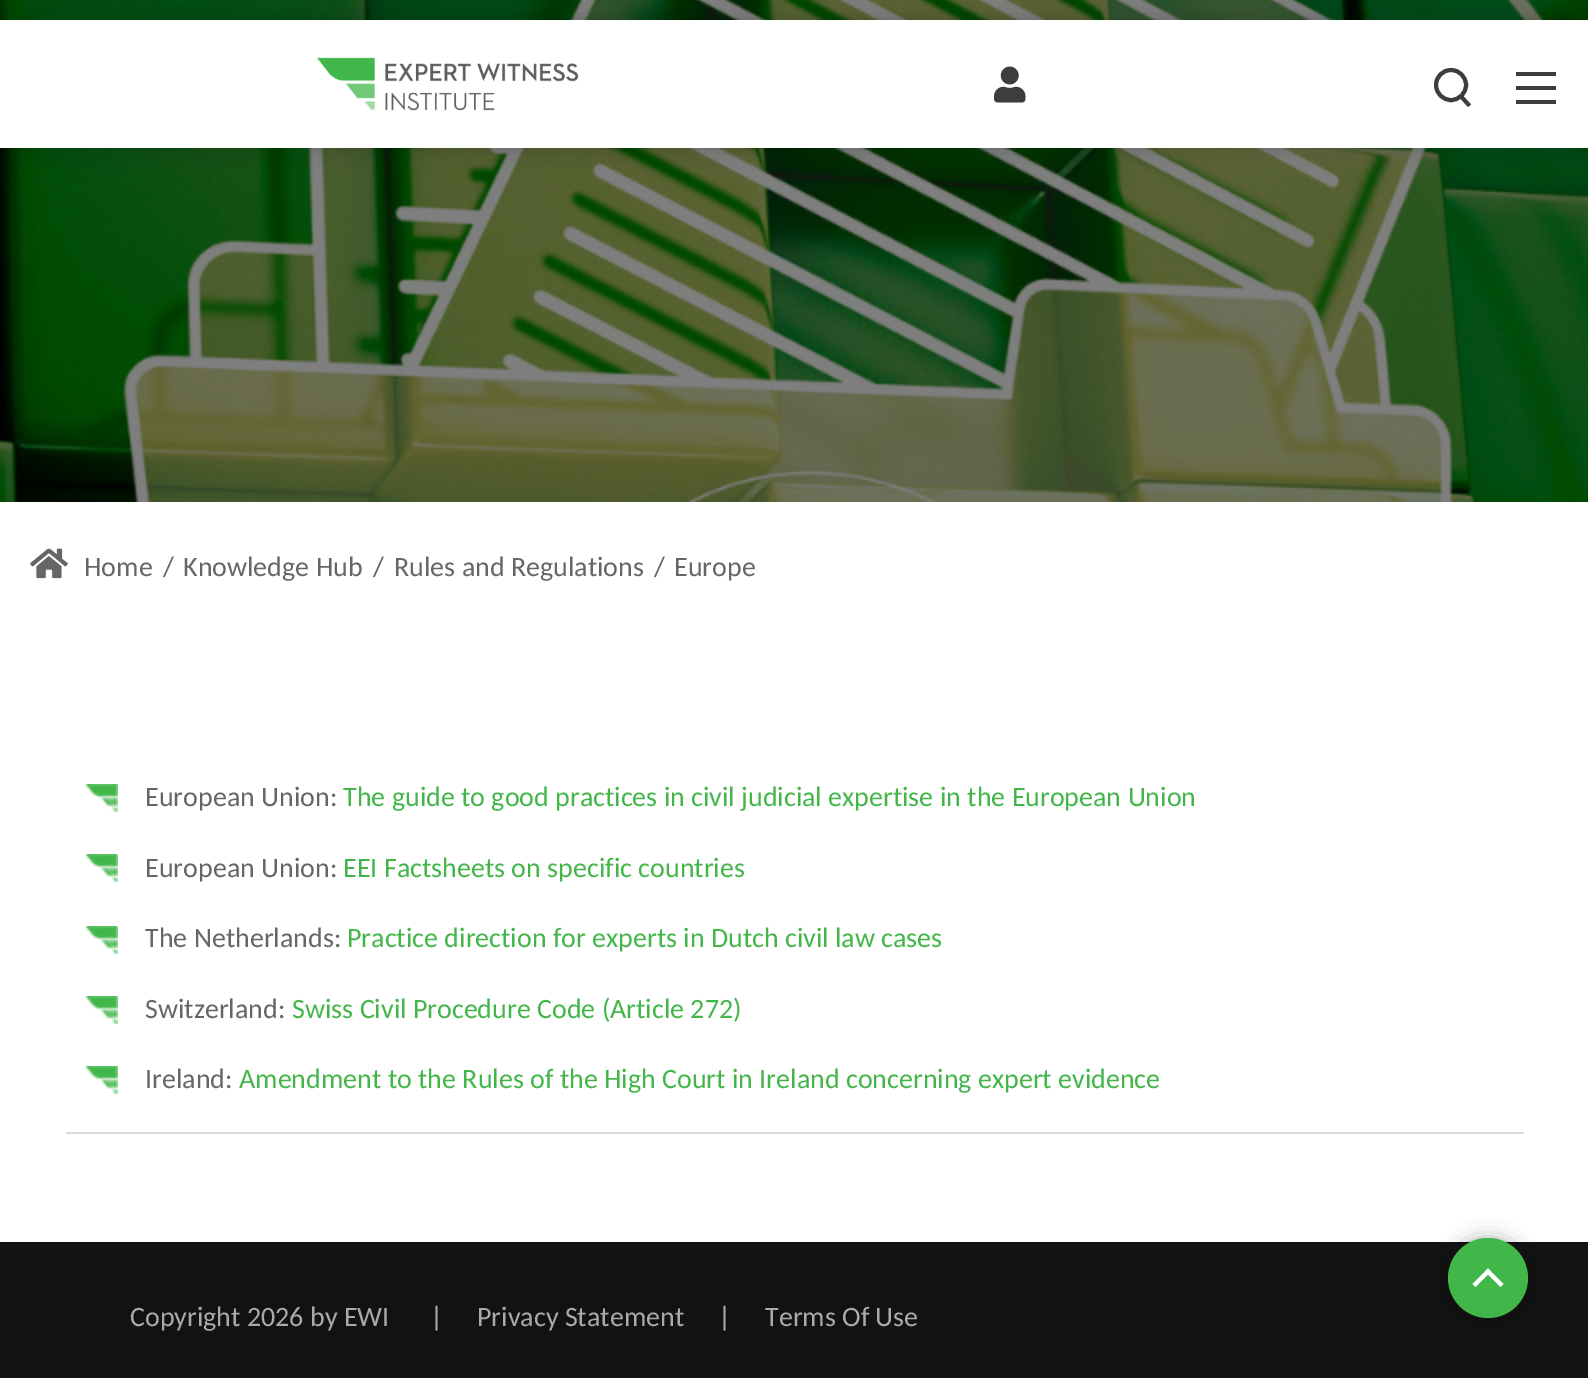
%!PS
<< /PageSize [1588 1378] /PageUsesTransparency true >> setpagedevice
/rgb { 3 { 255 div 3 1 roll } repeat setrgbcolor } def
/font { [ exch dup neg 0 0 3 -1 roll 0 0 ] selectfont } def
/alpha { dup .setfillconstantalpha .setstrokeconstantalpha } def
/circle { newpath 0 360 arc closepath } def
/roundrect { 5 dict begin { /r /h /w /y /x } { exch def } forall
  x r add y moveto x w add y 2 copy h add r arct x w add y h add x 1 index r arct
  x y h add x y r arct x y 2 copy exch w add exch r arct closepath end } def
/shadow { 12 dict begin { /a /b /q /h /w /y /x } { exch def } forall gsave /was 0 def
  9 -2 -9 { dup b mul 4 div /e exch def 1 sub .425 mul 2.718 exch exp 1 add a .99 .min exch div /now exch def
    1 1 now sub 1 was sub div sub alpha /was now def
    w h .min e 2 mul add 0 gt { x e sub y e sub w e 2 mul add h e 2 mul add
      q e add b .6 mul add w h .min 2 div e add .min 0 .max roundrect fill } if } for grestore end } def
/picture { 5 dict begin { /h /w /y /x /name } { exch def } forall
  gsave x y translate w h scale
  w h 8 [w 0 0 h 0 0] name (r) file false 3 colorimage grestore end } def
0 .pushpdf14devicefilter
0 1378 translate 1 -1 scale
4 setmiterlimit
255 255 255 rgb
0 0 1588 1378 rectfill
(img/1.rgb) 0 0 1588 502 picture
0 0 0 rgb
0 20 1588 128 0 10 0.2 shadow
255 255 255 rgb
0 20 1588 128 rectfill
(img/2.rgb) 317 57 262 54 picture
(img/3.rgb) 994 66 32 37 picture
61 61 61 rgb
1461.5 94 moveto 1471 104.5 lineto 1468 107 lineto 1458.5 96.5 lineto closepath fill
4 setlinewidth
1451 85 15 circle stroke
[
  [1516 72 40 4 61 61 61]
  [1516 86 40 4 61 61 61]
  [1516 100 40 4 61 61 61]
] { aload pop rgb rectfill } forall
(img/4.rgb) 30 548 38 31 picture
(img/5.rgb) 86 784 32 28 picture
(img/5.rgb) 86 854 32 28 picture
(img/5.rgb) 86 926 32 28 picture
(img/5.rgb) 86 996 32 28 picture
(img/5.rgb) 86 1066 32 28 picture
217 217 217 rgb
66 1132 1458 2 rectfill
18 18 18 rgb
0 1242 1588 136 rectfill
0 0 0 rgb
1448 1238 80 80 40 10 0.3 shadow
65 183 73 rgb
1488 1278 40 circle fill
255 255 255 rgb
1472.5 1284 moveto 1488 1268.5 lineto 1491 1271.5 lineto 1475.5 1287 lineto closepath fill
1485 1271.5 moveto 1488 1268.5 lineto 1503.5 1284 lineto 1500.5 1287 lineto closepath fill
/Carlito-Regular 28 font
102 102 102 rgb
[
  [(Home) 84 576]
  [(/) 163 576]
  [(Knowledge Hub) 183 576]
  [(/) 373 576]
  [(Rules and Regulations) 394 576]
  [(/) 654 576]
  [(Europe) 674 576]
  [(European Union:) 145 806]
] { aload pop moveto show } forall
67 182 73 rgb
343 806 moveto (The guide to good practices in civil judicial expertise in the European Union) show
102 102 102 rgb
145 877 moveto (European Union:) show
67 182 73 rgb
343 877 moveto (EEI Factsheets on specific countries) show
102 102 102 rgb
145 947 moveto (The Netherlands:) show
67 182 73 rgb
347 947 moveto (Practice direction for experts in Dutch civil law cases) show
102 102 102 rgb
145 1018 moveto (Switzerland:) show
67 182 73 rgb
292 1018 moveto (Swiss Civil Procedure Code \(Article 272\)) show
102 102 102 rgb
145 1088 moveto (Ireland:) show
67 182 73 rgb
239 1088 moveto (Amendment to the Rules of the High Court in Ireland concerning expert evidence) show
170 170 170 rgb
[
  [(Copyright 2026 by EWI) 130 1326]
  [(|) 430 1326]
  [(Privacy Statement) 477 1326]
  [(|) 718 1326]
  [(Terms Of Use) 765 1326]
] { aload pop moveto show } forall
.poppdf14devicefilter showpage
